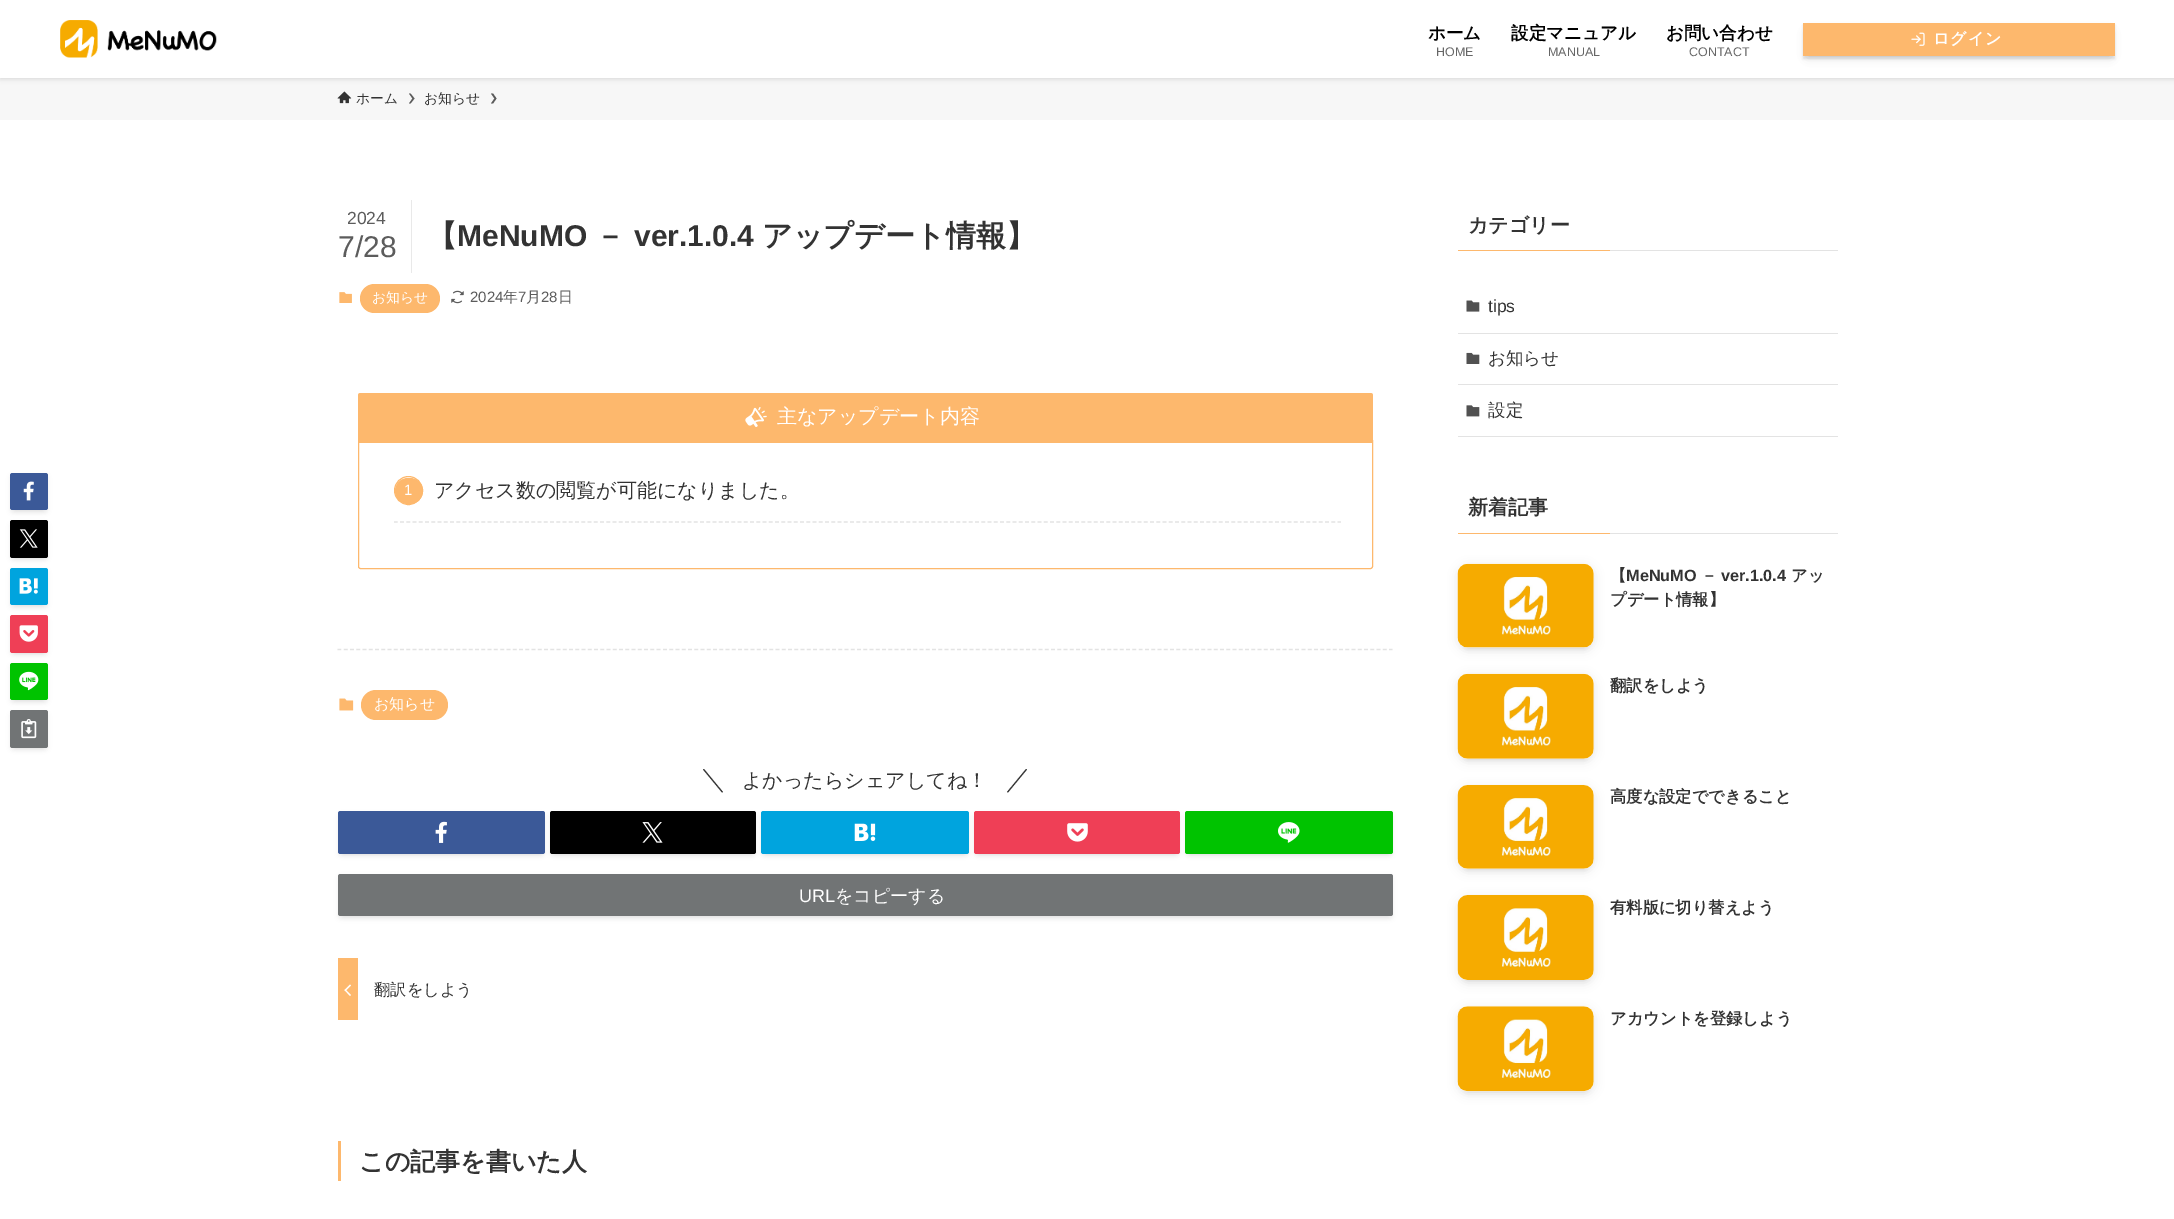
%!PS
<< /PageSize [2174 1219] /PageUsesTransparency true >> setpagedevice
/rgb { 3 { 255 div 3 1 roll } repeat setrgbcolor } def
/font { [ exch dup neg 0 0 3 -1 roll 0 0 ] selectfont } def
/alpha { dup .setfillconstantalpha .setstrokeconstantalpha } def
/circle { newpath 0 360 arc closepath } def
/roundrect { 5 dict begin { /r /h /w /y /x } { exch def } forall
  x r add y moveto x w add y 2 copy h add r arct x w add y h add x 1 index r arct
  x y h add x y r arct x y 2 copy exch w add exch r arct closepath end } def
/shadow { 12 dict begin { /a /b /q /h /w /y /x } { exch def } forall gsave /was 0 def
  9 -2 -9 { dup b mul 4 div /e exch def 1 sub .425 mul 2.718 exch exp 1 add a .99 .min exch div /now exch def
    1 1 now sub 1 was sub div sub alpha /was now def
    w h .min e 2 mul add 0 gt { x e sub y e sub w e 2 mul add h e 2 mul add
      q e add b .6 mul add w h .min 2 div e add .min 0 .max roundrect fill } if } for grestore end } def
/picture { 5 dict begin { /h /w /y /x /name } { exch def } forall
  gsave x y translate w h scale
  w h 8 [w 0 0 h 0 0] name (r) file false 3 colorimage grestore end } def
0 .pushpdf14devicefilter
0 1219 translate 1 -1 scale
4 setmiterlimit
255 255 255 rgb
0 0 2174 1219 rectfill
247 247 247 rgb
0 78 2174 42 rectfill
0 0 0 rgb
0 1 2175 78 0 2.5 0.12 shadow
255 255 255 rgb
0 0 2174 78 rectfill
(img/1.rgb) 60 20 157 38 picture
0 0 0 rgb
1808 33 302 23 0 5 0.2 shadow
1803 25 312 34 0 1 0.1 shadow
253 184 109 rgb
1803 23 312 33 rectfill
(img/2.rgb) 1911 32 14 14 picture
(img/3.rgb) 337 91 15 13 picture
90 90 90 rgb
410.5 93.5 moveto 409 93.5 lineto 412.5 98.5 lineto 409 103.5 lineto 410.5 103.5 lineto 414.5 98.5 lineto closepath fill
493 93.5 moveto 491 93.5 lineto 494.5 98.5 lineto 491 103.5 lineto 493 103.5 lineto 496.5 98.5 lineto closepath fill
233 233 233 rgb
411 200 1 73 rectfill
(img/4.rgb) 339 292 13 11 picture
253 184 109 rgb
360 284 80 29 14.5 roundrect fill
(img/5.rgb) 451 290 13 14 picture
358.5 440.5 moveto 1372.5 440.5 lineto 1372.5 566.5 lineto 1372.5 567.5 1371.5 568.5 1370.5 568.5 curveto 360.5 568.5 lineto 359.5 568.5 358.5 567.5 358.5 566.5 curveto closepath stroke
360.5 393 moveto 1370.5 393 lineto 1372 393 1373 394 1373 395.5 curveto 1373 443 lineto 358 443 lineto 358 395.5 lineto 358 394 359 393 360.5 393 curveto closepath fill
(img/6.rgb) 745 407 22 20 picture
227 227 227 rgb
1.2 setlinewidth
[3.75 2.5] 0 setdash
394 522 moveto 1341 522 lineto stroke
253 184 109 rgb
1 setlinewidth
[] 0 setdash
408.5 490.5 14 circle stroke
395 478 28 26 13 roundrect fill
0 0 0 rgb
15 483 28 27 0 2.5 0.1 shadow
10 475 38 38 2.5 2.5 0.05 shadow
59 89 152 rgb
10 473 38 37 2.5 roundrect fill
(img/7.rgb) 23 481 11 20 picture
0 0 0 rgb
15 530 28 28 0 2.5 0.1 shadow
10 523 38 37 2.5 2.5 0.05 shadow
10 520 38 38 2.5 roundrect fill
(img/8.rgb) 19 529 19 19 picture
15 578 28 27 0 2.5 0.1 shadow
10 570 38 38 2.5 2.5 0.05 shadow
0 164 222 rgb
10 568 38 37 2.5 roundrect fill
(img/9.rgb) 19 578 19 16 picture
0 0 0 rgb
15 625 28 28 0 2.5 0.1 shadow
10 618 38 37 2.5 2.5 0.05 shadow
239 63 86 rgb
10 615 38 38 2.5 roundrect fill
(img/10.rgb) 19 625 19 17 picture
0 0 0 rgb
15 673 28 27 0 2.5 0.1 shadow
10 665 38 38 2.5 2.5 0.05 shadow
0 195 0 rgb
10 663 38 37 2.5 roundrect fill
(img/11.rgb) 19 671 20 20 picture
0 0 0 rgb
15 720 28 28 0 2.5 0.1 shadow
10 713 38 37 2.5 2.5 0.05 shadow
113 116 117 rgb
10 710 38 38 2.5 roundrect fill
(img/12.rgb) 21 719 16 20 picture
227 227 227 rgb
1.2 setlinewidth
[3.75 2.51] 0 setdash
337.5 649.5 moveto 1392.5 649.5 lineto stroke
(img/13.rgb) 339 698 15 13 picture
253 184 109 rgb
361 690 87 30 15 roundrect fill
51 51 51 rgb
703 769.5 moveto 704 769 lineto 723 792 lineto 722 792.5 lineto closepath fill
1026 769 moveto 1027 769.5 lineto 1008 792.5 lineto 1007 792 lineto closepath fill
0 0 0 rgb
343 821 197 33 0 2.5 0.1 shadow
338 814 207 42 2.5 2.5 0.05 shadow
59 89 152 rgb
338 811 207 43 2.5 roundrect fill
(img/14.rgb) 435 821 12 22 picture
0 0 0 rgb
555 821 196 33 0 2.5 0.1 shadow
550 814 206 42 2.5 2.5 0.05 shadow
550 811 206 43 2.5 roundrect fill
(img/15.rgb) 642 822 21 21 picture
766 821 198 33 0 2.5 0.1 shadow
761 814 208 42 2.5 2.5 0.05 shadow
0 164 222 rgb
761 811 208 43 2.5 roundrect fill
(img/16.rgb) 854 823 22 18 picture
0 0 0 rgb
979 821 196 33 0 2.5 0.1 shadow
974 814 206 42 2.5 2.5 0.05 shadow
239 63 86 rgb
974 811 206 43 2.5 roundrect fill
(img/17.rgb) 1067 823 21 19 picture
0 0 0 rgb
1190 821 198 33 0 2.5 0.1 shadow
1185 814 208 42 2.5 2.5 0.05 shadow
0 195 0 rgb
1185 811 208 43 2.5 roundrect fill
(img/18.rgb) 1278 822 22 21 picture
0 0 0 rgb
343 884 1045 32 0 2.5 0.1 shadow
338 876 1055 43 2.5 2.5 0.05 shadow
113 116 117 rgb
338 874 1055 42 2.5 roundrect fill
253 184 109 rgb
338 958 20 62 rectfill
255 255 255 rgb
345.5 989.5 moveto 351 995 lineto 350 996 lineto 344.5 990 lineto closepath fill
350 984.5 moveto 351 985.5 lineto 345.5 991 lineto 344.5 990 lineto closepath fill
[
  [338 1141 3 40 253 184 109]
  [1458 250 152 1 253 184 109]
  [1610 250 228 1 227 227 227]
  [1458 333 380 1 227 227 227]
] { aload pop rgb rectfill } forall
(img/19.rgb) 1466 300 14 12 picture
1458 384 380 1 rectfill
(img/20.rgb) 1466 352 14 12 picture
1458 436 380 1 rectfill
(img/21.rgb) 1466 405 14 12 picture
253 184 109 rgb
1458 533 152 1 rectfill
227 227 227 rgb
1610 533 228 1 rectfill
0 0 0 rgb
1463 574 126 74 5 2.5 0.1 shadow
1458 566 136 84 10 5 0.1 shadow
(img/22.rgb) 1457 563 137 85 picture
1463 684 126 75 5 2.5 0.1 shadow
1458 676 136 85 10 5 0.1 shadow
(img/23.rgb) 1457 673 137 86 picture
1463 795 126 74 5 2.5 0.1 shadow
1458 788 136 83 10 5 0.1 shadow
(img/24.rgb) 1457 785 137 84 picture
1463 905 126 75 5 2.5 0.1 shadow
1458 898 136 85 10 5 0.1 shadow
(img/25.rgb) 1457 895 137 85 picture
1463 1016 126 75 5 2.5 0.1 shadow
1458 1009 136 85 10 5 0.1 shadow
(img/26.rgb) 1457 1006 137 86 picture
/WenQuanYiZenHei-Bold 17.5 font
1428 39 moveto (ホーム) show
/LiberationSans-Regular 12.5 font
102 102 102 rgb
1436 56 moveto (HOME) show
/WenQuanYiZenHei-Bold 17.5 font
0 0 0 rgb
1511 39 moveto (設定マニュアル) show
/LiberationSans-Regular 12.5 font
102 102 102 rgb
1548 56 moveto (MANUAL) show
/WenQuanYiZenHei-Bold 17.5 font
0 0 0 rgb
1666 39 moveto (お問い合わせ) show
/LiberationSans-Regular 12.5 font
102 102 102 rgb
1689 56 moveto (CONTACT) show
/WenQuanYiZenHei-Bold 16 font
255 255 255 rgb
1933 44 moveto 1 0 (ログイン) ashow
/WenQuanYiZenHei-Medium 13.75 font
51 51 51 rgb
356 103 moveto (ホーム) show
424 103 moveto (お知らせ) show
/LiberationSans-Regular 17.5 font
92 92 92 rgb
347 224 moveto (2024) show
/LiberationSans-Regular 30 font
338 257 moveto (7/28) show
/WenQuanYiZenHei-Bold 30 font
51 51 51 rgb
427 246 moveto (【) show
/LiberationSans-Bold 30 font
457 246 moveto (MeNuMO) show
/WenQuanYiZenHei-Bold 30 font
595 246 moveto (－) show
/LiberationSans-Bold 30 font
634 246 moveto (ver.1.0.4) show
/WenQuanYiZenHei-Bold 30 font
762 246 moveto (アップデート情報】) show
/WenQuanYiZenHei-Medium 13.75 font
255 255 255 rgb
372 302 moveto (お知らせ) show
/LiberationSans-Regular 15 font
92 92 92 rgb
470 302 moveto (2024) show
/WenQuanYiZenHei-Medium 15 font
503 302 moveto (年) show
/LiberationSans-Regular 15 font
518 302 moveto (7) show
/WenQuanYiZenHei-Medium 15 font
526 302 moveto (月) show
/LiberationSans-Regular 15 font
541 302 moveto (28) show
/WenQuanYiZenHei-Medium 15 font
558 302 moveto (日) show
/WenQuanYiZenHei-Medium 20 font
255 255 255 rgb
777 423 moveto (主なアップデート内容) show
/LiberationSans-Regular 15 font
404 495 moveto (1) show
/WenQuanYiZenHei-Medium 20 font
51 51 51 rgb
434 497 moveto (アクセス数の閲覧が可能になりました。) show
/WenQuanYiZenHei-Medium 15 font
255 255 255 rgb
374 709 moveto (お知らせ) show
/WenQuanYiZenHei-Medium 20 font
51 51 51 rgb
742 787 moveto (よかったらシェアしてね！) show
/LiberationSans-Regular 18 font
255 255 255 rgb
799 902 moveto (URL) show
/WenQuanYiZenHei-Medium 18 font
835 902 moveto (をコピーする) show
/WenQuanYiZenHei-Medium 16.25 font
51 51 51 rgb
374 995 moveto (翻訳をしよう) show
/WenQuanYiZenHei-Bold 25 font
359 1170 moveto (この記事を書いた人) show
/WenQuanYiZenHei-Bold 20 font
1468 232 moveto (カテゴリー) show
/LiberationSans-Regular 17.5 font
1488 312 moveto (tips) show
/WenQuanYiZenHei-Medium 17.5 font
1488 364 moveto (お知らせ) show
1488 416 moveto (設定) show
/WenQuanYiZenHei-Bold 20 font
1468 514 moveto (新着記事) show
/WenQuanYiZenHei-Bold 16.25 font
1610 581 moveto (【) show
/LiberationSans-Bold 16.25 font
1626 581 moveto (MeNuMO) show
/WenQuanYiZenHei-Bold 16.25 font
1701 581 moveto (－) show
/LiberationSans-Bold 16.25 font
1721 581 moveto (ver.1.0.4) show
/WenQuanYiZenHei-Bold 16.25 font
[
  [(アッ) 1791 581]
  [(プデート情報】) 1610 605]
  [(翻訳をしよう) 1610 691]
  [(高度な設定でできること) 1610 802]
  [(有料版に切り替えよう) 1610 913]
  [(アカウントを登録しよう) 1610 1024]
] { aload pop moveto show } forall
.poppdf14devicefilter showpage
